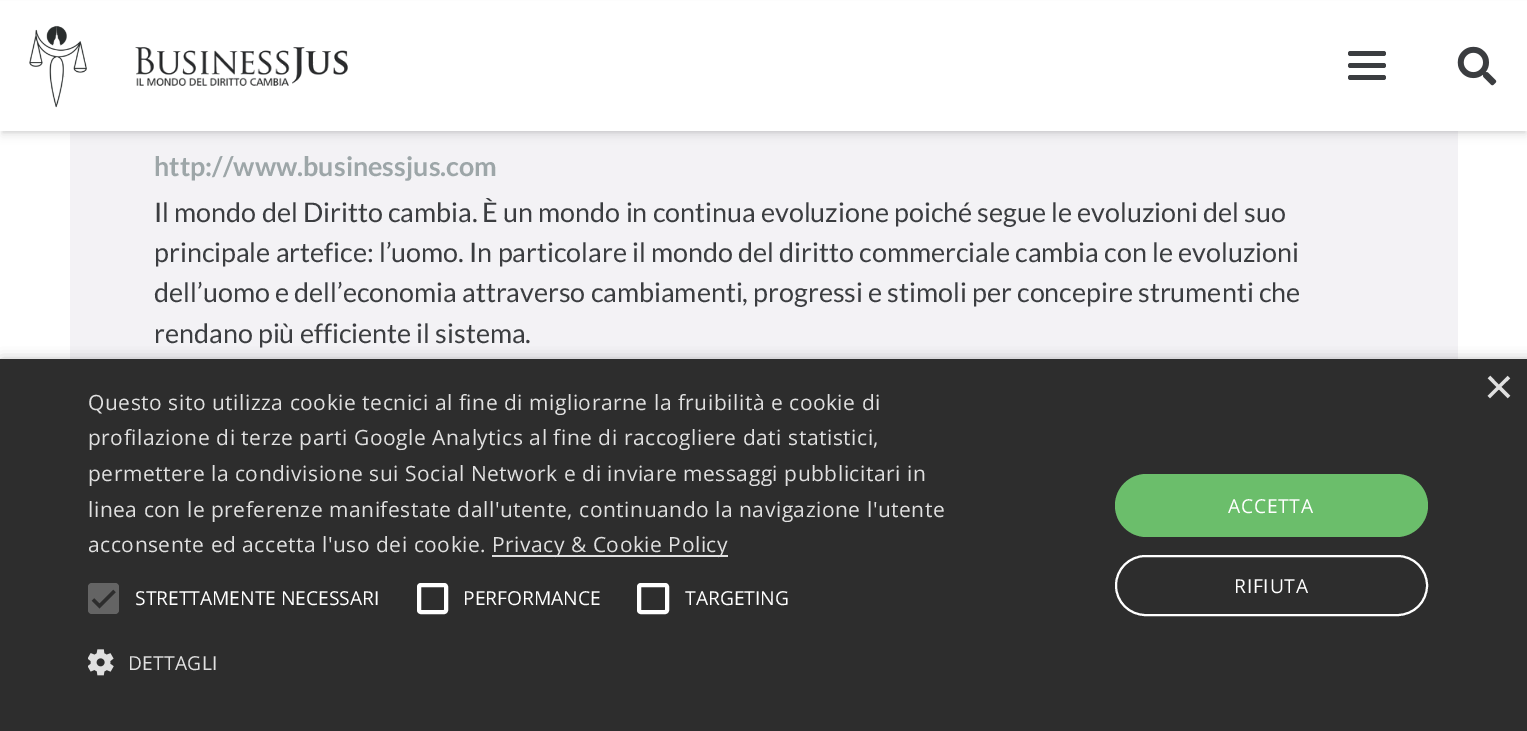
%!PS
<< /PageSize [1527 731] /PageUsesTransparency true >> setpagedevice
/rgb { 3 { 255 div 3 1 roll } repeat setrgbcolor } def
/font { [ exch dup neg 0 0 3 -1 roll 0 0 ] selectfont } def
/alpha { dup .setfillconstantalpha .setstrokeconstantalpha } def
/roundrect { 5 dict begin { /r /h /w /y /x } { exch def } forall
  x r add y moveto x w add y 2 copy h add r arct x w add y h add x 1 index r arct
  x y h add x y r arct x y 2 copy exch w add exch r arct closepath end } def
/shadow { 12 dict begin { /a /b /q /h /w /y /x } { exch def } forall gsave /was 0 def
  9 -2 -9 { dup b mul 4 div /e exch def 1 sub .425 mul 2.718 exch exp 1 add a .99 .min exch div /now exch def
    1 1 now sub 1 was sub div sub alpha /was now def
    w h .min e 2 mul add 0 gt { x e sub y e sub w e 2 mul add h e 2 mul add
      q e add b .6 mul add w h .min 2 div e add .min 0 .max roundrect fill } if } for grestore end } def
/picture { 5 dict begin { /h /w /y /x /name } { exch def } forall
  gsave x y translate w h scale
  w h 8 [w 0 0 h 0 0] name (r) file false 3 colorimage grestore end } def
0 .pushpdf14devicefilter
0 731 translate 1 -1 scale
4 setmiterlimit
255 255 255 rgb
0 0 1527 731 rectfill
243 242 245 rgb
70 131 1388 228 rectfill
0 0 0 rgb
2 5 1524 128 0 1 0.05 shadow
2 7 1524 128 0 4.5 0.1 shadow
255 255 255 rgb
0 1 1527 130 rectfill
(img/1.rgb) 29 25 58 83 picture
(img/2.rgb) 135 47 213 39 picture
59 61 64 rgb
1348 63 38 5 2.5 roundrect fill
1348 51 38 5 2.5 roundrect fill
1348 75 38 5 2.5 roundrect fill
(img/3.rgb) 1457 46 40 40 picture
0 0 0 rgb
2 362 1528 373 0 7 0.35 shadow
45 45 45 rgb
0 359 1527 372 rectfill
224 224 224 rgb
492 555 236 2 rectfill
100 100 100 rgb
88 583 31 31 4 roundrect fill
45 45 45 rgb
3.2 setlinewidth
93 599.5 moveto 99.5 606 lineto 114.5 591 lineto stroke
255 255 255 rgb
4 setlinewidth
419 585 27 27 2 roundrect stroke
639 585 28 27 2 roundrect stroke
(img/4.rgb) 88 649 26 27 picture
107 190 107 rgb
1115 474 313 63 31.5 roundrect fill
255 255 255 rgb
2 setlinewidth
1116 556 311 59 29.5 roundrect stroke
/Lato-Bold 26.9 font
157 166 168 rgb
154 176 moveto (http://www.businessjus.com) show
/Lato-Regular 26.9 font
59 61 64 rgb
[
  [(Il mondo del Diritto cambia. È un mondo in continua evoluzione poiché segue le evoluzioni del suo) 154 222]
  [(principale artefice: l’uomo. In particolare il mondo del diritto commerciale cambia con le evoluzioni) 154 262]
  [(dell’uomo e dell’economia attraverso cambiamenti, progressi e stimoli per concepire strumenti che) 154 302]
  [(rendano più efficiente il sistema.) 154 343]
] { aload pop moveto show } forall
/LiberationSans-Regular 51 font
224 224 224 rgb
1484 404 moveto (×) show
/OpenSans-Regular 21 font
88 410 moveto 0.53 0 (Questo sito utilizza cookie tecnici al fine di migliorarne la fruibilità e cookie di) ashow
88 445 moveto 0.53 0 (profilazione di terze parti Google Analytics al fine di raccogliere dati statistici,) ashow
88 481 moveto 0.53 0 (permettere la condivisione sui Social Network e di inviare messaggi pubblicitari in) ashow
88 517 moveto 0.53 0 (linea con le preferenze manifestate dall'utente, continuando la navigazione l'utente) ashow
88 552 moveto 0.53 0 (acconsente ed accetta l'uso dei cookie.) ashow
492 552 moveto 0.53 0 (Privacy & Cookie Policy) ashow
/OpenSans-Regular 19.25 font
255 255 255 rgb
[
  [(STRETTAMENTE NECESSARI) 135 605]
  [(PERFORMANCE) 463 605]
  [(TARGETING) 685 605]
] { aload pop moveto show } forall
224 224 224 rgb
128 670 moveto 0.25 0 (DETTAGLI) ashow
255 255 255 rgb
1228 513 moveto 0.75 0 (ACCETTA) ashow
1234 593 moveto 0.75 0 (RIFIUTA) ashow
.poppdf14devicefilter showpage
